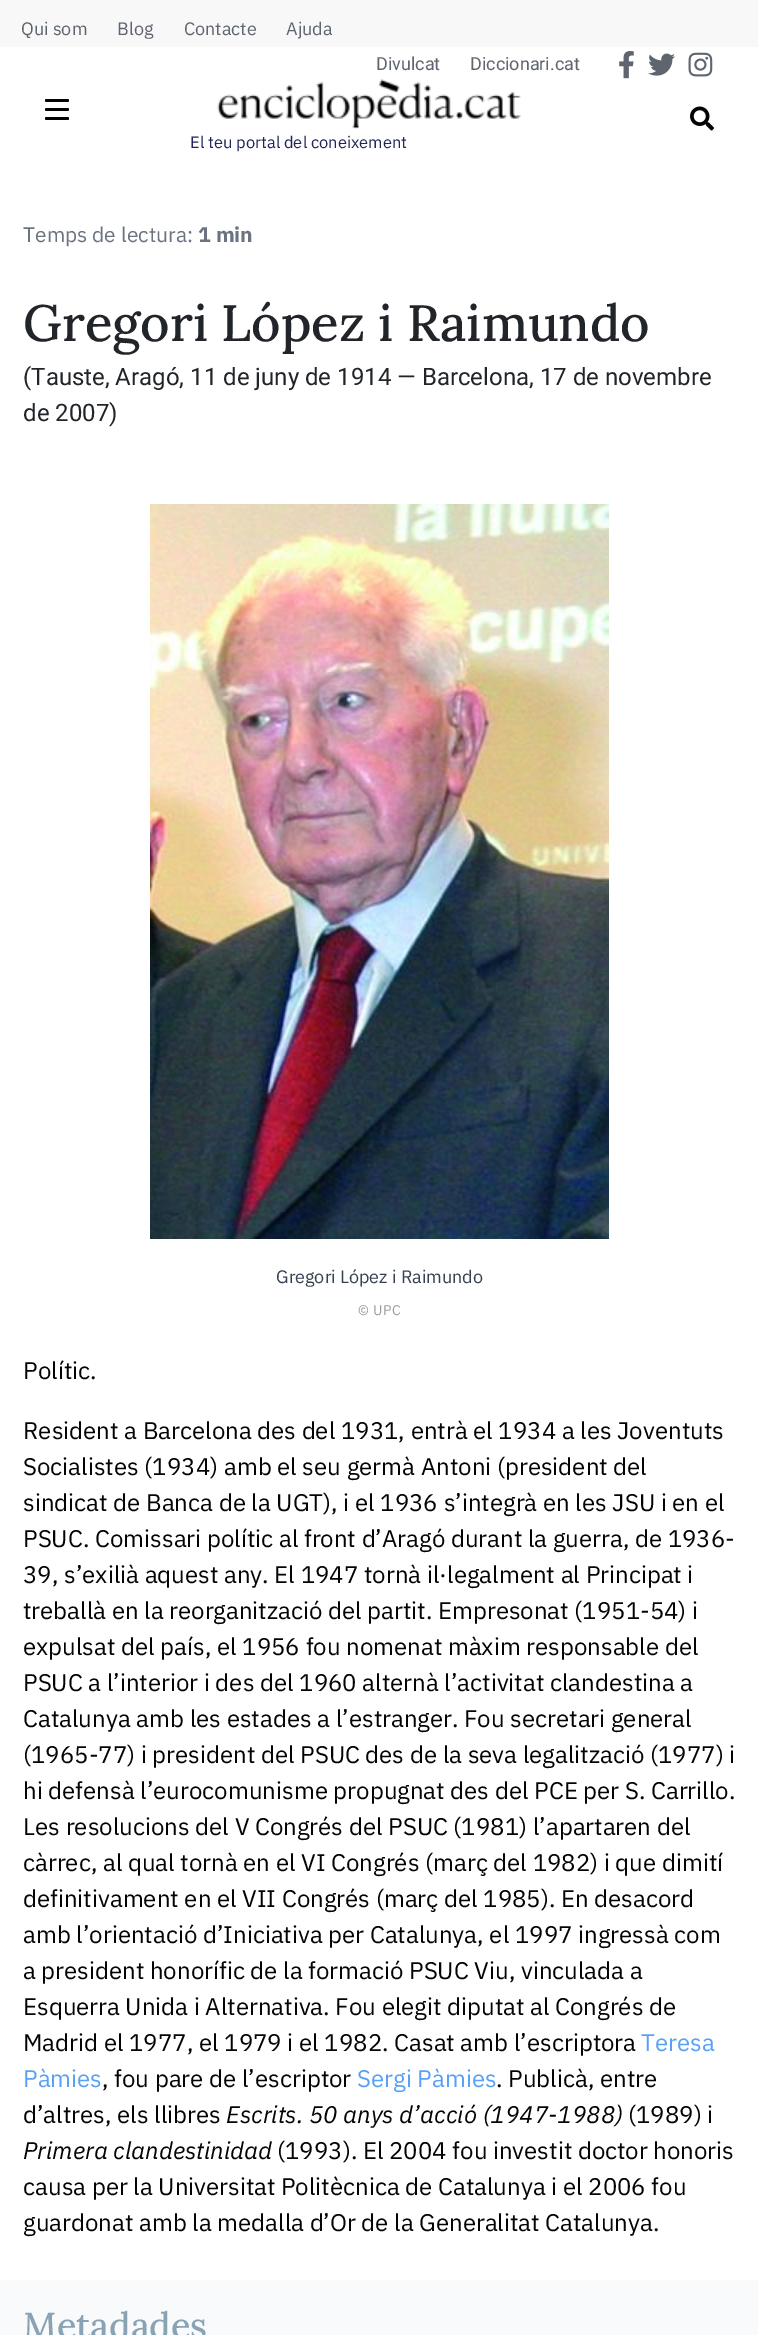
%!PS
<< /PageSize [758 2335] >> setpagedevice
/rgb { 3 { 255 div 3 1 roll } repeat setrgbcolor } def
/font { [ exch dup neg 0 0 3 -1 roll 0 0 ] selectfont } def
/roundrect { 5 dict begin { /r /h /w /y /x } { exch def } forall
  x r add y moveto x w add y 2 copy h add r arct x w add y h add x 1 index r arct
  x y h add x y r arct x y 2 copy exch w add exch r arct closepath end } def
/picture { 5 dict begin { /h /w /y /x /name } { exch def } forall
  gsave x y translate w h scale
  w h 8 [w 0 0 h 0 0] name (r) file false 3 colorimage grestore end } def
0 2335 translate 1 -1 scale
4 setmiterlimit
255 255 255 rgb
0 0 758 2335 rectfill
248 248 248 rgb
0 0 758 47 rectfill
(img/1.rgb) 619 51 15 28 picture
(img/2.rgb) 648 53 27 23 picture
(img/3.rgb) 688 52 25 25 picture
2 3 3 rgb
45 99 24 3 1.5 roundrect fill
45 108 24 3 1.5 roundrect fill
45 117 24 3 1.5 roundrect fill
(img/4.rgb) 690 106 24 25 picture
(img/5.rgb) 217 79 304 50 picture
(img/6.rgb) 150 504 459 735 picture
249 250 251 rgb
0 2280 758 55 rectfill
/IBMPlexSans-Regular 18 font
94 101 110 rgb
[
  [(Qui som) 21 35]
  [(Blog) 117 35]
  [(Contacte) 184 35]
  [(Ajuda) 286 35]
] { aload pop moveto show } forall
/Roboto-Regular 18 font
376 70 moveto (Divulcat) show
470 70 moveto (Diccionari.cat) show
/IBMPlexSans-Regular 16.5 font
33 37 89 rgb
190 148 moveto (El teu portal del coneixement) show
/IBMPlexSans-Regular 21 font
107 114 128 rgb
23 242 moveto (Temps de lectura:) show
/IBMPlexSans-Bold 21 font
198 242 moveto (1 min) show
/Lora-Medium 51 font
33 37 41 rgb
23 341 moveto (Gregori López i Raimundo) show
/Roboto-Regular 24 font
23 385 moveto (\(Tauste, Aragó, 11 de juny de 1914 — Barcelona, 17 de novembre) show
23 421 moveto (de 2007\)) show
/IBMPlexSans-Regular 18 font
55 65 81 rgb
276 1283 moveto (Gregori López i Raimundo) show
/IBMPlexSans-Regular 14 font
158 158 158 rgb
358 1315 moveto 0.5 0 (© UPC) ashow
/IBMPlexSans-Regular 24 font
2 3 3 rgb
[
  [(Polític.) 23 1379]
  [(Resident a Barcelona des del 1931, entrà el 1934 a les Joventuts) 23 1439]
  [(Socialistes \(1934\) amb el seu germà Antoni \(president del) 23 1475]
  [(sindicat de Banca de la UGT\), i el 1936 s’integrà en les JSU i en el) 23 1511]
  [(PSUC. Comissari polític al front d’Aragó durant la guerra, de 1936-) 23 1547]
  [(39, s’exilià aquest any. El 1947 tornà il·legalment al Principat i) 23 1583]
  [(treballà en la reorganització del partit. Empresonat \(1951-54\) i) 23 1619]
  [(expulsat del país, el 1956 fou nomenat màxim responsable del) 23 1655]
  [(PSUC a l’interior i des del 1960 alternà l’activitat clandestina a) 23 1691]
  [(Catalunya amb les estades a l’estranger. Fou secretari general) 23 1727]
  [(\(1965-77\) i president del PSUC des de la seva legalització \(1977\) i) 23 1763]
  [(hi defensà l’eurocomunisme propugnat des del PCE per S. Carrillo.) 23 1799]
  [(Les resolucions del V Congrés del PSUC \(1981\) l’apartaren del) 23 1835]
  [(càrrec, al qual tornà en el VI Congrés \(març del 1982\) i que dimití) 23 1871]
  [(definitivament en el VII Congrés \(març del 1985\). En desacord) 23 1907]
  [(amb l’orientació d’Iniciativa per Catalunya, el 1997 ingressà com) 23 1943]
  [(a president honorífic de la formació PSUC Viu, vinculada a) 23 1979]
  [(Esquerra Unida i Alternativa. Fou elegit diputat al Congrés de) 23 2015]
  [(Madrid el 1977, el 1979 i el 1982. Casat amb l’escriptora) 23 2051]
] { aload pop moveto show } forall
89 161 244 rgb
641 2051 moveto (Teresa) show
23 2087 moveto (Pàmies) show
2 3 3 rgb
102 2087 moveto (, fou pare de l’escriptor) show
89 161 244 rgb
357 2087 moveto (Sergi Pàmies) show
2 3 3 rgb
496 2087 moveto (. Publicà, entre) show
23 2123 moveto (d’altres, els llibres) show
/IBMPlexSans-Italic 24 font
226 2123 moveto (Escrits. 50 anys d’acció \(1947-1988\)) show
/IBMPlexSans-Regular 24 font
628 2123 moveto (\(1989\) i) show
/IBMPlexSans-Italic 24 font
23 2159 moveto (Primera clandestinidad) show
/IBMPlexSans-Regular 24 font
[
  [(\(1993\). El 2004 fou investit doctor honoris) 277 2159]
  [(causa per la Universitat Politècnica de Catalunya i el 2006 fou) 23 2195]
  [(guardonat amb la medalla d’Or de la Generalitat Catalunya.) 23 2231]
] { aload pop moveto show } forall
/Lora-Medium 36 font
137 163 181 rgb
23 2338 moveto (Metadades) show
showpage
